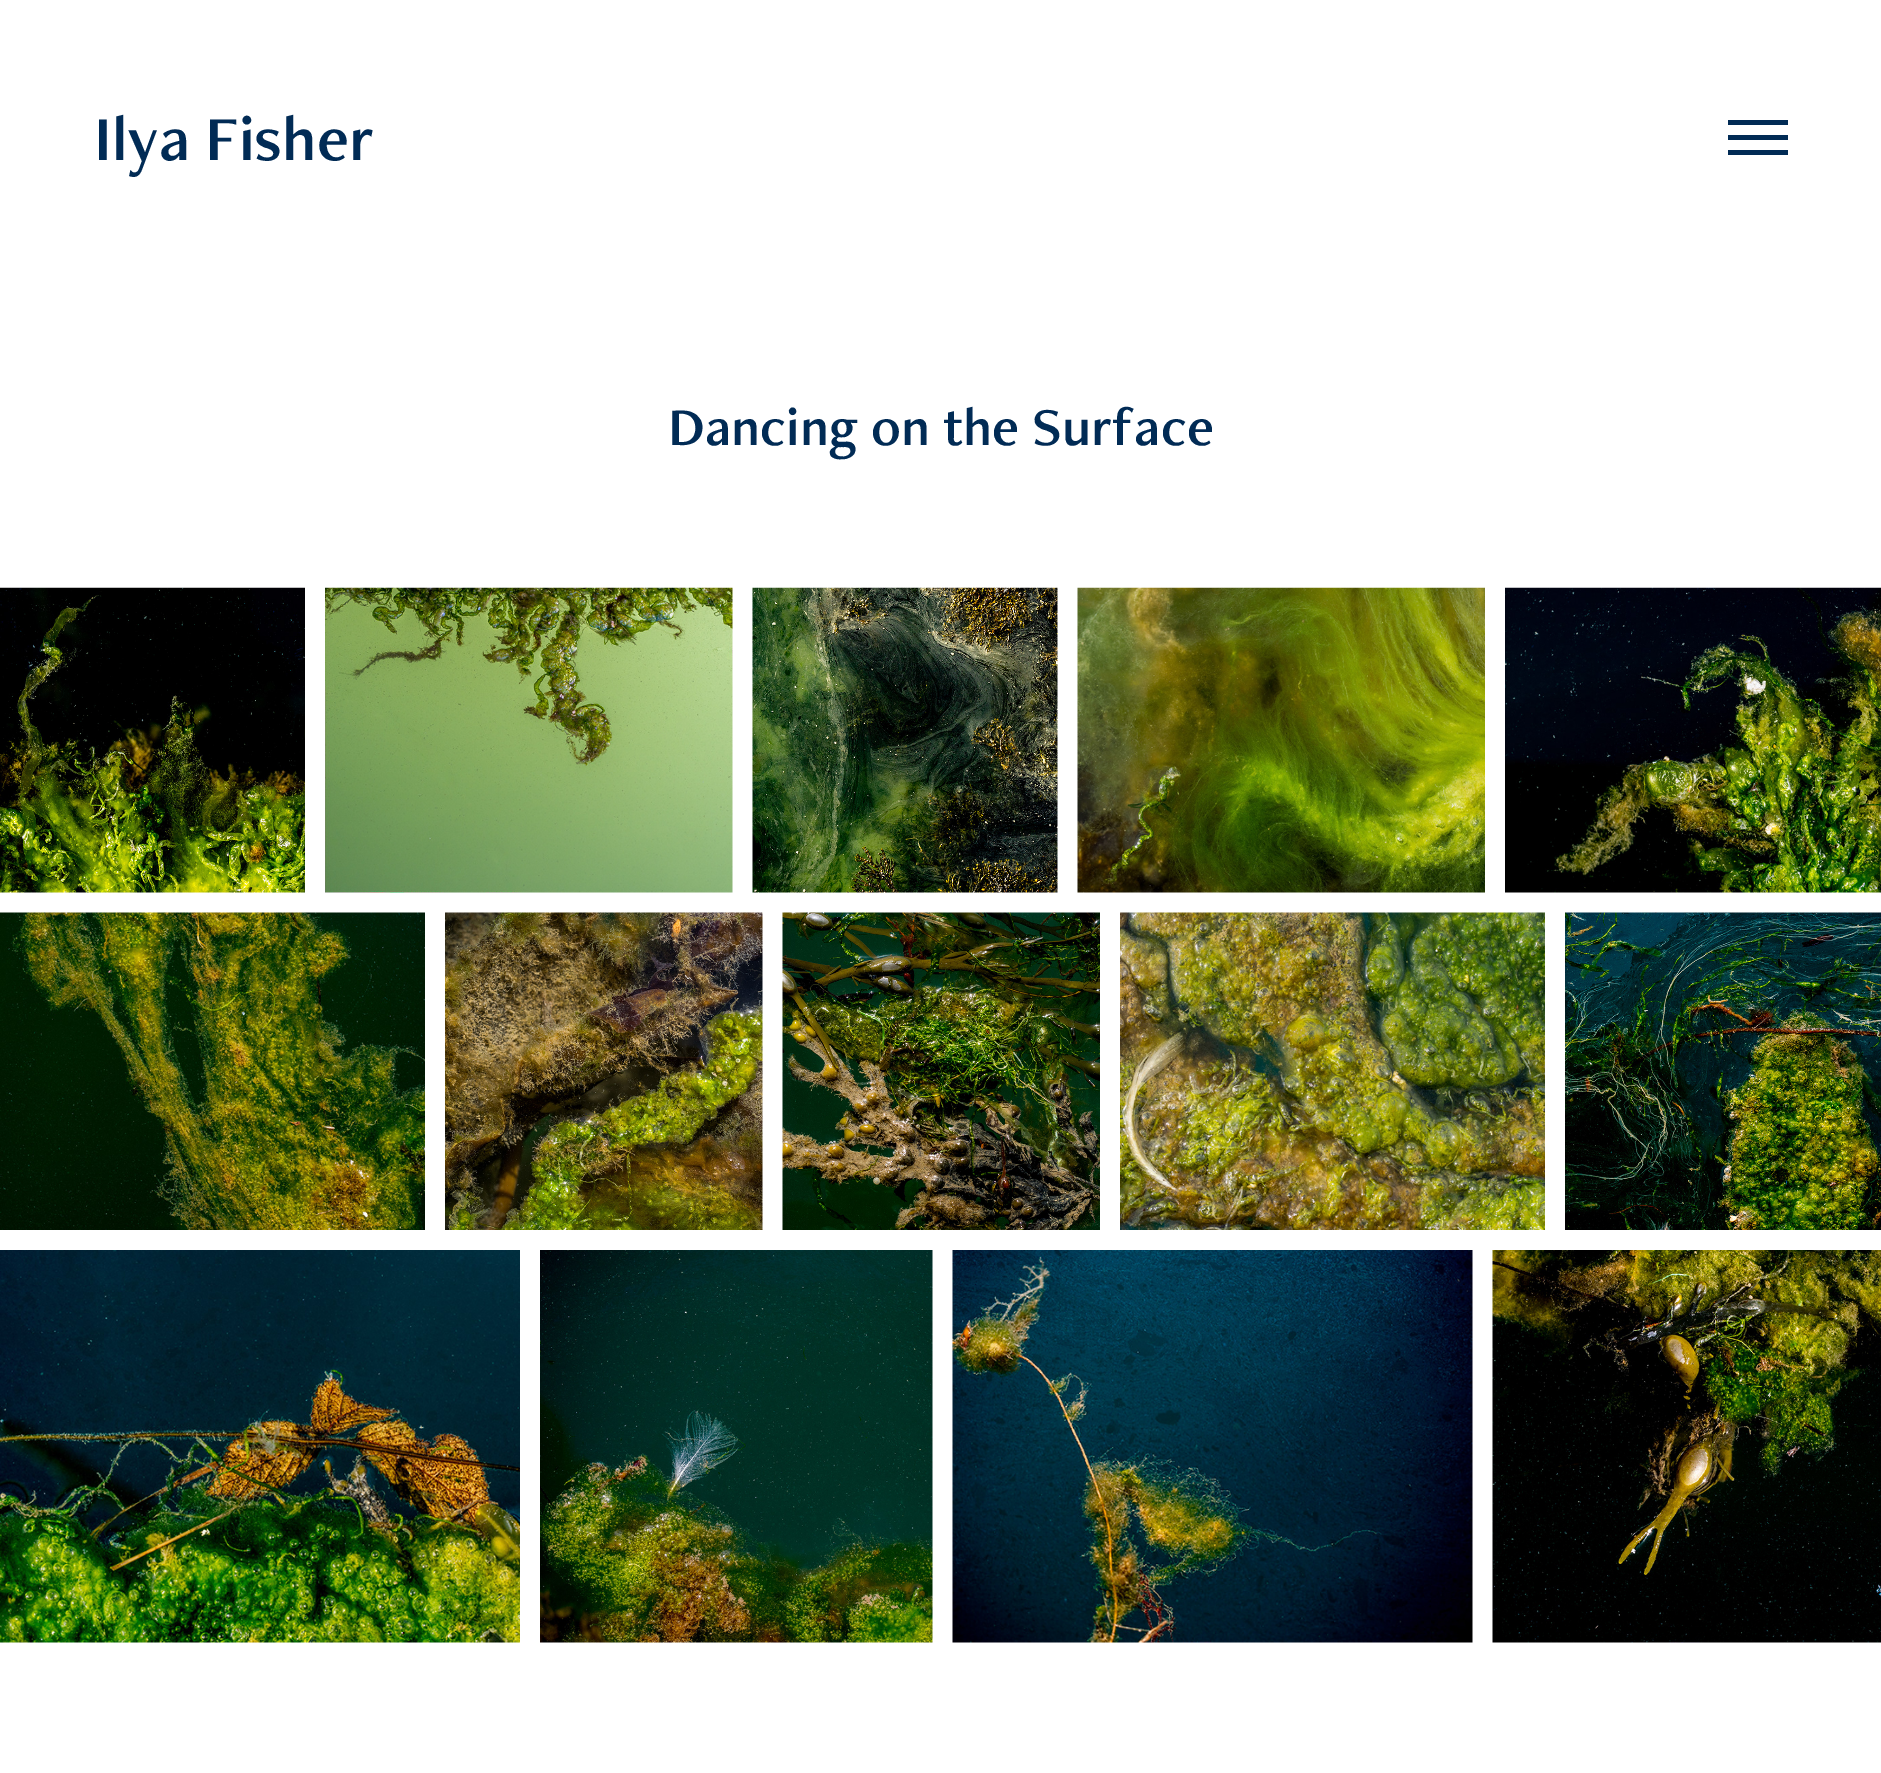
%!PS
<< /PageSize [1881 1773] >> setpagedevice
/rgb { 3 { 255 div 3 1 roll } repeat setrgbcolor } def
/font { [ exch dup neg 0 0 3 -1 roll 0 0 ] selectfont } def
/picture { 5 dict begin { /h /w /y /x /name } { exch def } forall
  gsave x y translate w h scale
  w h 8 [w 0 0 h 0 0] name (r) file false 3 colorimage grestore end } def
0 1773 translate 1 -1 scale
4 setmiterlimit
255 255 255 rgb
0 0 1881 1773 rectfill
[
  [1728 120 60 5 1 43 85]
  [1728 135 60 5 1 43 85]
  [1728 150 60 5 1 43 85]
] { aload pop rgb rectfill } forall
(img/1.rgb) 0 587 305 306 picture
(img/2.rgb) 325 587 408 306 picture
(img/3.rgb) 752 587 306 306 picture
(img/4.rgb) 1077 587 408 306 picture
(img/5.rgb) 1505 587 376 306 picture
(img/6.rgb) 0 912 425 318 picture
(img/7.rgb) 445 912 318 318 picture
(img/8.rgb) 782 912 318 318 picture
(img/9.rgb) 1120 912 425 318 picture
(img/10.rgb) 1565 912 316 318 picture
(img/11.rgb) 0 1250 520 393 picture
(img/12.rgb) 540 1250 393 393 picture
(img/13.rgb) 952 1250 521 393 picture
(img/14.rgb) 1492 1250 389 393 picture
/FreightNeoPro-Regular 65 font
94 160 moveto (Ilya Fisher) show
/FreightNeoPro-Regular 55 font
668 445 moveto (Dancing on the Surface) show
showpage
